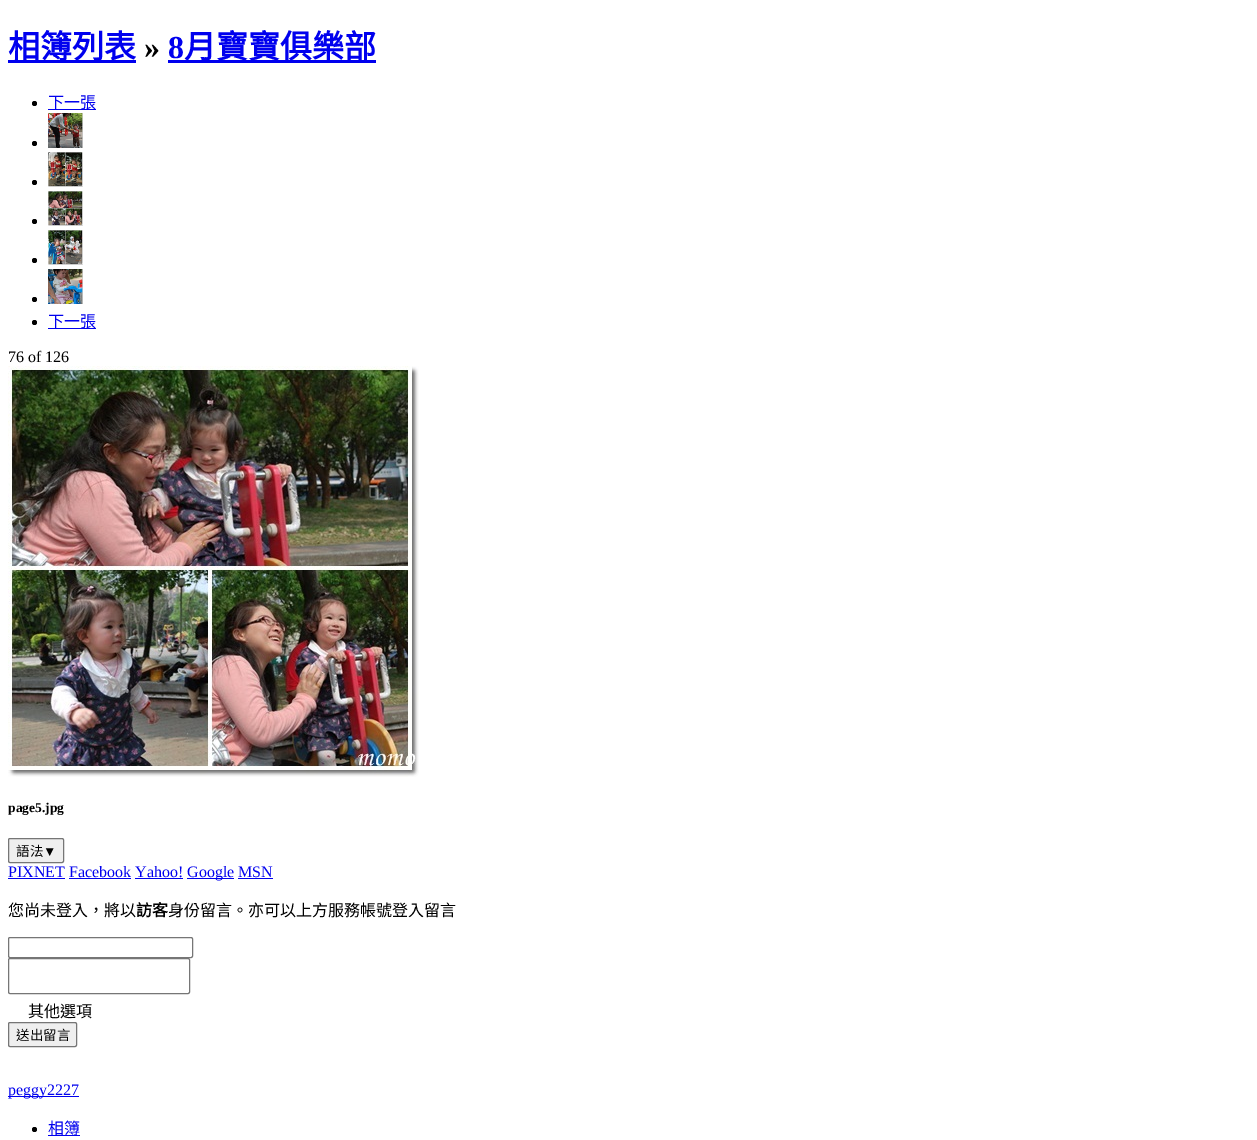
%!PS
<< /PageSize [1257 1140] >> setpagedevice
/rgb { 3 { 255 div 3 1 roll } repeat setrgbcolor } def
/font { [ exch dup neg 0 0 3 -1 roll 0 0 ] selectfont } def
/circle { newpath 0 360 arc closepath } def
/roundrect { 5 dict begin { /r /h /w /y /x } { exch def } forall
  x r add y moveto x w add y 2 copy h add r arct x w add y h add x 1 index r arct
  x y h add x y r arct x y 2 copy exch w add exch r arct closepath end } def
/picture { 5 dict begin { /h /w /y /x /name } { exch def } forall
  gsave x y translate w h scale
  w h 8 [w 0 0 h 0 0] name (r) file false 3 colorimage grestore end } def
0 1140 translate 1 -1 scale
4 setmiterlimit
255 255 255 rgb
0 0 1257 1140 rectfill
0 0 238 rgb
8 60 128 3 rectfill
168 60 208 3 rectfill
0 0 0 rgb
34.5 103.5 2.5 circle fill
0 0 238 rgb
48 109 48 1 rectfill
0 0 0 rgb
34.5 143.5 2.5 circle fill
(img/1.rgb) 48 113 35 35 picture
34.5 182.5 2.5 circle fill
(img/2.rgb) 48 152 35 35 picture
34.5 221.5 2.5 circle fill
(img/3.rgb) 48 191 35 35 picture
34.5 260.5 2.5 circle fill
(img/4.rgb) 48 230 35 35 picture
34.5 299.5 2.5 circle fill
(img/5.rgb) 48 269 35 35 picture
34.5 322.5 2.5 circle fill
0 0 238 rgb
48 328 48 1 rectfill
(img/6.rgb) 8 366 411 411 picture
239 239 239 rgb
8.5 838.5 55 24 1.5 roundrect gsave fill grestore
118 118 118 rgb
stroke
[
  [8 878 57 1 0 0 238]
  [187 878 47 1 0 0 238]
  [69 878 62 1 0 0 238]
  [135 878 48 1 0 0 238]
  [238 878 35 1 0 0 238]
] { aload pop rgb rectfill } forall
118 118 118 rgb
8.5 937.5 184 20 1.5 roundrect stroke
8.5 958.5 181 35 1.5 roundrect stroke
239 239 239 rgb
8.5 1022.5 68 24 1.5 roundrect gsave fill grestore
118 118 118 rgb
stroke
0 0 238 rgb
8 1096 71 1 rectfill
0 0 0 rgb
34.5 1129.5 2.5 circle fill
0 0 238 rgb
48 1135 32 1 rectfill
/NotoSansCJKTC-Bold 32 font
8 58 moveto (相簿列表) show
/LiberationSerif-Bold 32 font
0 0 0 rgb
144 58 moveto (») show
0 0 238 rgb
168 58 moveto (8) show
/NotoSansCJKTC-Bold 32 font
184 58 moveto (月寶寶俱樂部) show
/NotoSansCJKTC-Regular 16 font
48 108 moveto (下一張) show
48 327 moveto (下一張) show
/LiberationSerif-Regular 16 font
0 0 0 rgb
8 362 moveto (76 of 126) show
/LiberationSerif-Bold 13.5 font
8 812 moveto (page5.jpg) show
/NotoSansCJKTC-Regular 13.5 font
16 856 moveto (語法) show
/LiberationSans-Regular 13.5 font
43 856 moveto (▼) show
/LiberationSerif-Regular 16 font
0 0 238 rgb
8 877 moveto (PIXNET Facebook Yahoo!) show
187 877 moveto (Google MSN) show
/NotoSansCJKTC-Regular 16 font
0 0 0 rgb
8 916 moveto (您尚未登入，將以) show
/NotoSansCJKTC-Bold 16 font
136 916 moveto (訪客) show
/NotoSansCJKTC-Regular 16 font
168 916 moveto (身份留言。亦可以上方服務帳號登入留言) show
28 1017 moveto (其他選項) show
/NotoSansCJKTC-Regular 13.5 font
16 1040 moveto (送出留言) show
/LiberationSerif-Regular 16 font
0 0 238 rgb
8 1095 moveto (peggy2227) show
/NotoSansCJKTC-Regular 16 font
48 1134 moveto (相簿) show
showpage
